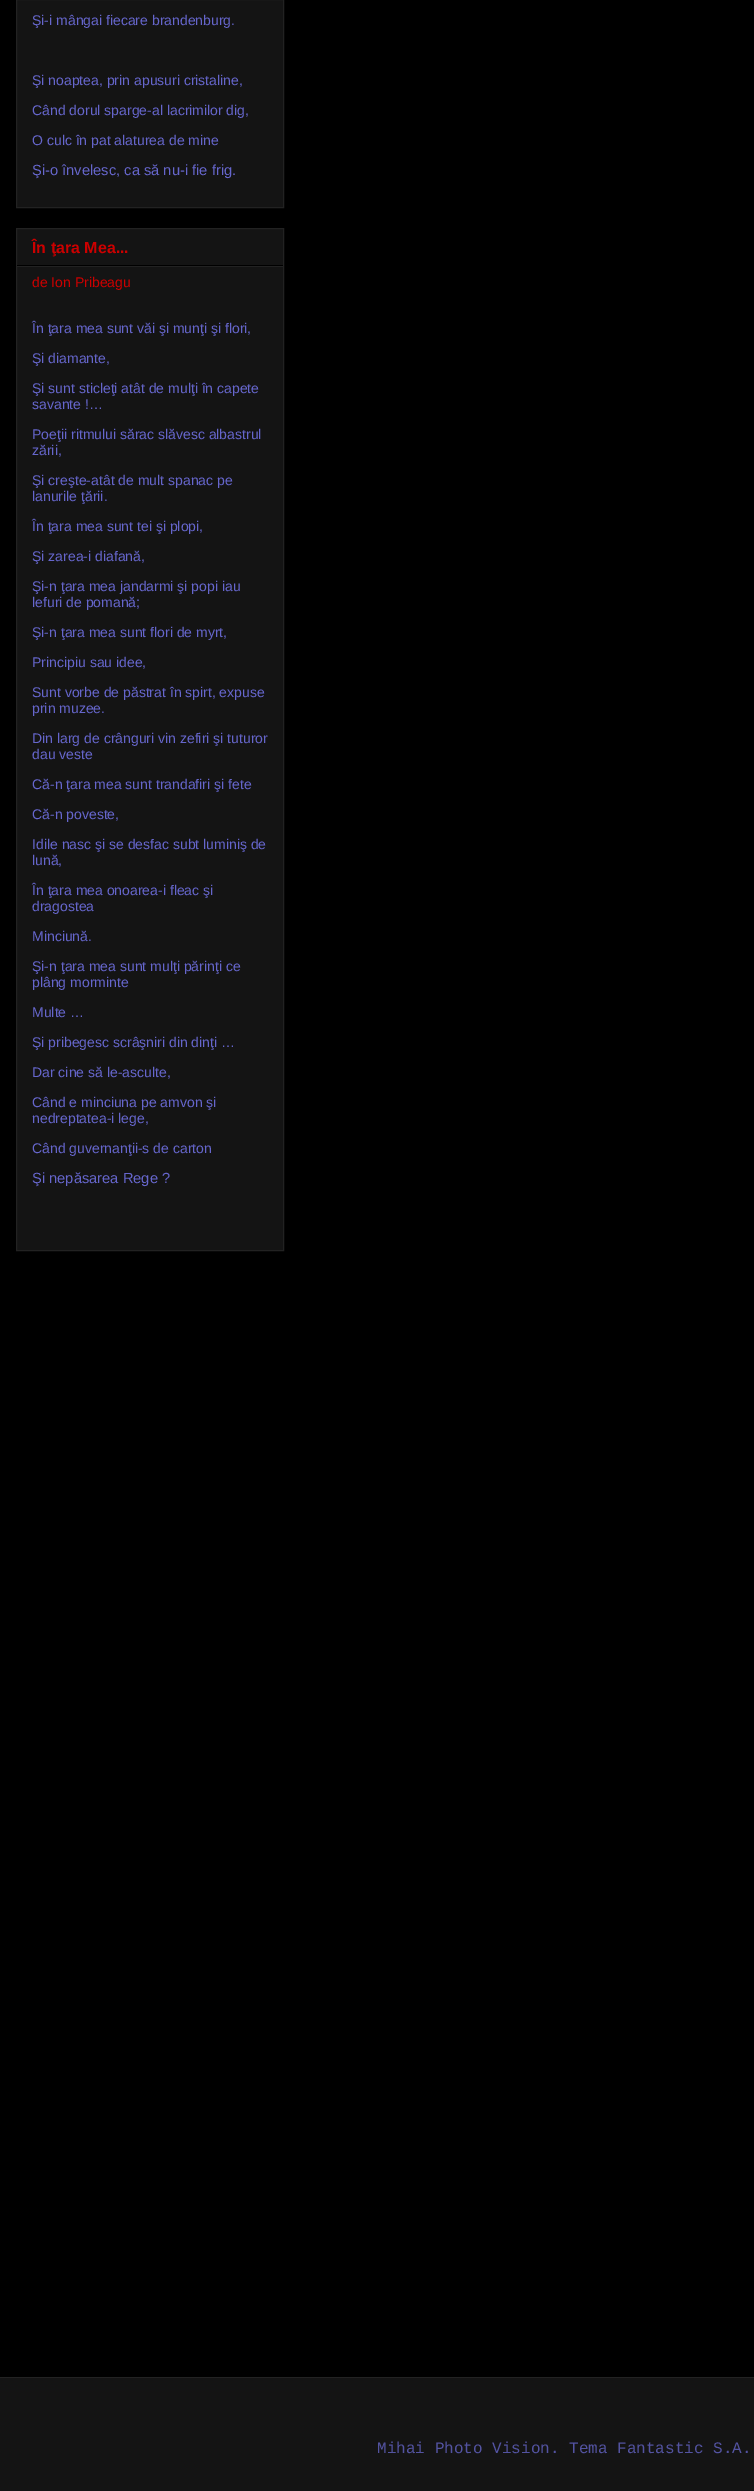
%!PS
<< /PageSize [754 2491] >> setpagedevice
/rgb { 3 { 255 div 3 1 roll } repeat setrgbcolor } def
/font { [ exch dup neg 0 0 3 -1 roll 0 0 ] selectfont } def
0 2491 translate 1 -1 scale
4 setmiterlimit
0 0 0 rgb
0 0 754 2491 rectfill
20 20 20 rgb
16.5 -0.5 moveto 283.5 -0.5 lineto 283.5 207.5 lineto 16.5 207.5 lineto closepath gsave fill grestore
34 34 34 rgb
stroke
20 20 20 rgb
16.5 228.5 moveto 283.5 228.5 lineto 283.5 1250.5 lineto 16.5 1250.5 lineto closepath gsave fill grestore
34 34 34 rgb
stroke
[
  [17 265 266 1 0 0 0]
  [17 266 266 1 34 34 34]
  [0 2378 754 113 20 20 20]
  [0 2377 754 1 34 34 34]
] { aload pop rgb rectfill } forall
/LiberationSans-Regular 14 font
102 102 204 rgb
[
  [(Şi-i mângai fiecare brandenburg.) 32 25]
  [(Şi noaptea, prin apusuri cristaline,) 32 85]
  [(Când dorul sparge-al lacrimilor dig,) 32 115]
  [(O culc în pat alaturea de mine) 32 145]
] { aload pop moveto show } forall
/LiberationSans-Regular 14.7 font
32 175 moveto (Şi-o învelesc, ca să nu-i fie frig.) show
/LiberationSans-Bold 16 font
204 0 0 rgb
32 253 moveto (În ţara Mea...) show
/LiberationSans-Regular 14 font
32 287 moveto (de Ion Pribeagu) show
102 102 204 rgb
[
  [(În ţara mea sunt văi şi munţi şi flori,) 32 333]
  [(Şi diamante,) 32 363]
  [(Şi sunt sticleţi atât de mulţi în capete) 32 393]
  [(savante !…) 32 409]
  [(Poeţii ritmului sărac slăvesc albastrul) 32 439]
  [(zării,) 32 455]
  [(Şi creşte-atât de mult spanac pe) 32 485]
  [(lanurile ţării.) 32 501]
  [(În ţara mea sunt tei şi plopi,) 32 531]
  [(Şi zarea-i diafană,) 32 561]
  [(Şi-n ţara mea jandarmi şi popi iau) 32 591]
  [(lefuri de pomană;) 32 607]
  [(Şi-n ţara mea sunt flori de myrt,) 32 637]
  [(Principiu sau idee,) 32 667]
  [(Sunt vorbe de păstrat în spirt, expuse) 32 697]
  [(prin muzee.) 32 713]
  [(Din larg de crânguri vin zefiri şi tuturor) 32 743]
  [(dau veste) 32 759]
  [(Că-n ţara mea sunt trandafiri şi fete) 32 789]
  [(Că-n poveste,) 32 819]
  [(Idile nasc şi se desfac subt luminiş de) 32 849]
  [(lună,) 32 865]
  [(În ţara mea onoarea-i fleac şi) 32 895]
  [(dragostea) 32 911]
  [(Minciună.) 32 941]
  [(Şi-n ţara mea sunt mulţi părinţi ce) 32 971]
  [(plâng morminte) 32 987]
  [(Multe …) 32 1017]
  [(Şi pribegesc scrâşniri din dinţi …) 32 1047]
  [(Dar cine să le-asculte,) 32 1077]
  [(Când e minciuna pe amvon şi) 32 1107]
  [(nedreptatea-i lege,) 32 1123]
  [(Când guvernanţii-s de carton) 32 1153]
] { aload pop moveto show } forall
/LiberationSans-Regular 14.7 font
32 1183 moveto (Şi nepăsarea Rege ?) show
/LiberationMono-Regular 16 font
83 83 161 rgb
377 2453 moveto (Mihai Photo Vision. Tema Fantastic S.A.) show
showpage
